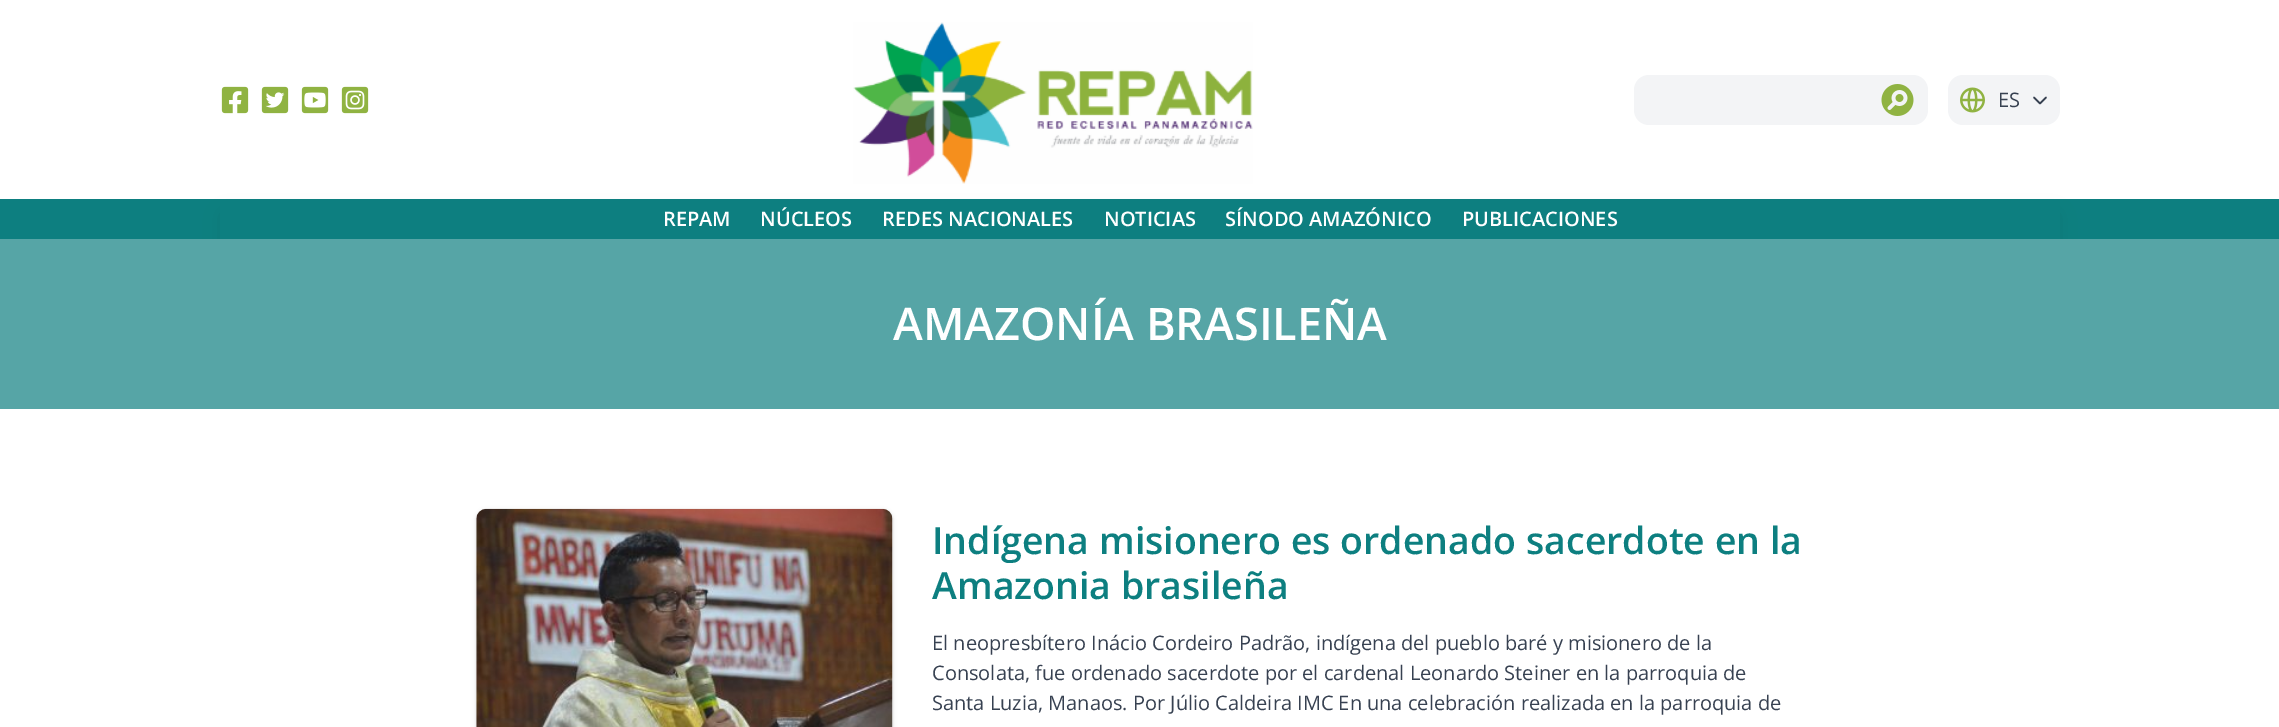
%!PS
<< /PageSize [2279 727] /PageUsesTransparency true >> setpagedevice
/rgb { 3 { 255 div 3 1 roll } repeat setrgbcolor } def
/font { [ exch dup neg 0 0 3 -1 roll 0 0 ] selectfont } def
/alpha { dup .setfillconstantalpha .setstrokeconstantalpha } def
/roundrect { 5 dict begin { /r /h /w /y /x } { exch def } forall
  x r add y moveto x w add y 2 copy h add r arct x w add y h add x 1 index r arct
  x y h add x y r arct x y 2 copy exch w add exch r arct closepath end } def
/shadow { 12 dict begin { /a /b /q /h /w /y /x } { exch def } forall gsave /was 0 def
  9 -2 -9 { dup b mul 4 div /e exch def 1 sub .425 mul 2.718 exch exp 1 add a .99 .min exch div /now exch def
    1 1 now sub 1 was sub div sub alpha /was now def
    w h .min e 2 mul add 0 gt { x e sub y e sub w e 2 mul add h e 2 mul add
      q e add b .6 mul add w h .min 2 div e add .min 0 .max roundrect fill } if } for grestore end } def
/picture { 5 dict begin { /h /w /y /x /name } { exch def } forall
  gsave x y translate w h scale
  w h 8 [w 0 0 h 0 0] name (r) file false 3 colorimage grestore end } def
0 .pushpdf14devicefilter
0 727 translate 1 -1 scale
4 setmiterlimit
255 255 255 rgb
0 0 2279 727 rectfill
(img/1.rgb) 221 86 28 28 picture
(img/2.rgb) 261 86 28 28 picture
(img/3.rgb) 301 86 28 28 picture
(img/4.rgb) 341 86 28 28 picture
(img/5.rgb) 853 22 400 162 picture
243 244 246 rgb
1634 75 294 50 15 roundrect fill
(img/6.rgb) 1881 84 33 32 picture
1948 75 112 50 15 roundrect fill
(img/7.rgb) 1960 87 25 26 picture
55 65 81 rgb
1.7 setlinewidth
1 setlinecap
1 setlinejoin
2046 97.5 moveto 2040 103.5 lineto 2034 97.5 lineto stroke
13 127 128 rgb
0 199 2279 40 rectfill
gsave
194 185 moveto 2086 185 lineto 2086 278 lineto 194 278 lineto closepath 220 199 moveto 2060 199 lineto 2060 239 lineto 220 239 lineto closepath eoclip newpath
0 0 0 rgb
224 215 1832 33 0 9.5 0.1 shadow
grestore
86 165 166 rgb
0 239 2279 170 rectfill
0 0 0 rgb
476 510 417 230 10 1 0.06 shadow
476 510 417 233 10 2 0.1 shadow
(img/8.rgb) 476 508 417 219 picture
/OpenSans-Regular 20 font
55 65 81 rgb
1998 107 moveto (ES) show
/OpenSans-SemiBold 20 font
255 255 255 rgb
[
  [(REPAM) 663 226]
  [(NÚCLEOS) 760 226]
  [(REDES NACIONALES) 882 226]
  [(NOTICIAS) 1104 226]
  [(SÍNODO AMAZÓNICO) 1225 226]
  [(PUBLICACIONES) 1462 226]
] { aload pop moveto show } forall
/OpenSans-SemiBold 45 font
893 340 moveto (AMAZONÍA BRASILEÑA) show
/OpenSans-SemiBold 37.5 font
13 127 128 rgb
932 554 moveto (Indígena misionero es ordenado sacerdote en la) show
932 599 moveto (Amazonia brasileña) show
/OpenSans-Regular 20 font
55 65 81 rgb
[
  [(El neopresbítero Inácio Cordeiro Padrão, indígena del pueblo baré y misionero de la) 932 650]
  [(Consolata, fue ordenado sacerdote por el cardenal Leonardo Steiner en la parroquia de) 932 680]
  [(Santa Luzia, Manaos. Por Júlio Caldeira IMC En una celebración realizada en la parroquia de) 932 710]
] { aload pop moveto show } forall
.poppdf14devicefilter showpage
